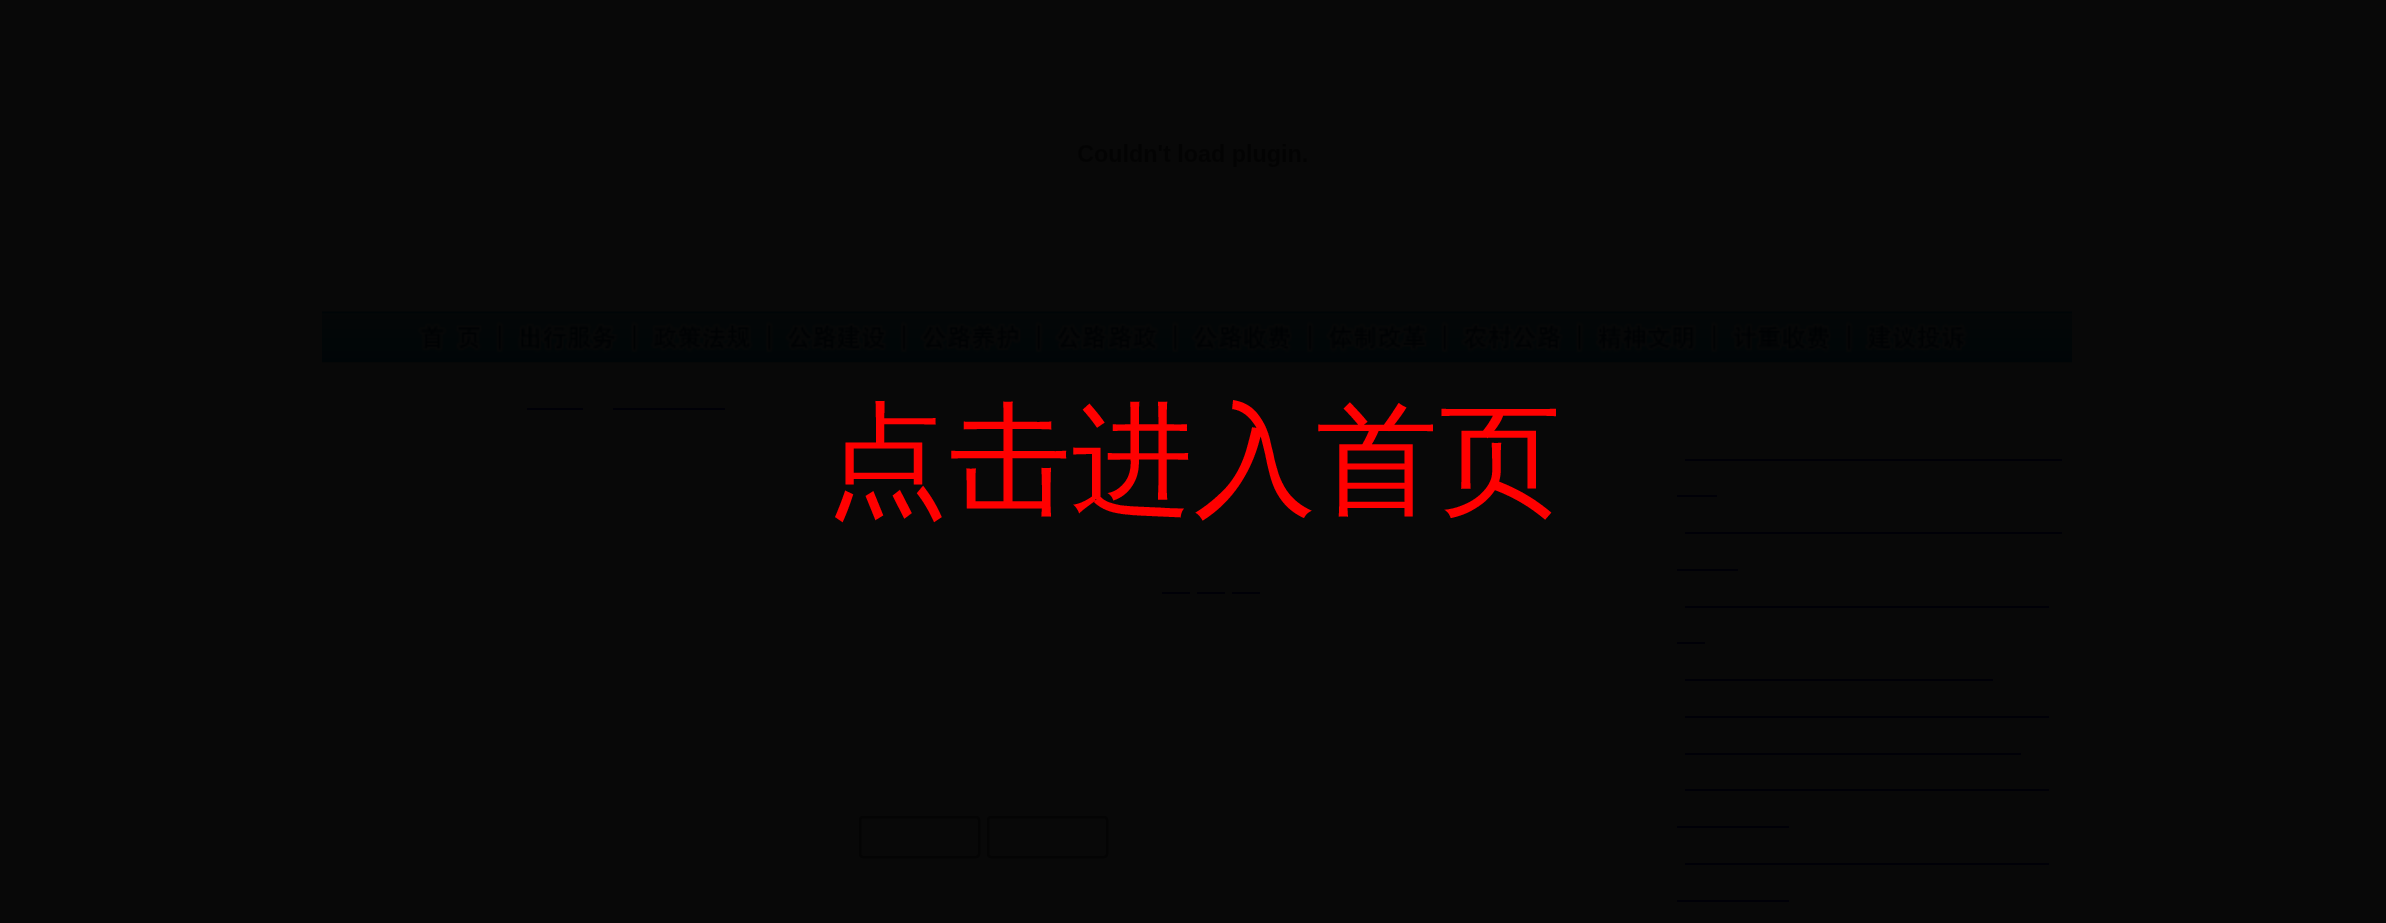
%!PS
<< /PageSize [2386 923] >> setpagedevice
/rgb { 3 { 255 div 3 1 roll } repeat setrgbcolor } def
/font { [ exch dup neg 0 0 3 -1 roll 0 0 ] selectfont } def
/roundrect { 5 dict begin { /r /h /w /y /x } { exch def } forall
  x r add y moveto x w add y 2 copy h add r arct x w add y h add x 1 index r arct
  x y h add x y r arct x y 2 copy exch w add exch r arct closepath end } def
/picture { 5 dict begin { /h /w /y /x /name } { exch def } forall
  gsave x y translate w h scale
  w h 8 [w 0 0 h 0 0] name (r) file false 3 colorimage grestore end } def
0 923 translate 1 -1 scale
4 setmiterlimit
8 8 8 rgb
0 0 2386 923 rectfill
(img/1.rgb) 1078 144 229 23 picture
(img/2.rgb) 322 311 1750 52 picture
[
  [527 408 56 2 0 0 7]
  [613 408 112 2 0 0 7]
  [1685 459 377 2 0 0 7]
  [1677 495 40 2 0 0 7]
  [1685 532 377 2 0 0 7]
  [1677 569 61 2 0 0 7]
  [1685 606 364 2 0 0 7]
  [1677 642 28 2 0 0 7]
  [1685 679 308 2 0 0 7]
  [1685 716 364 2 0 0 7]
  [1685 753 336 2 0 0 7]
  [1685 789 364 2 0 0 7]
  [1677 826 112 2 0 0 7]
  [1685 863 364 2 0 0 7]
  [1677 900 112 2 0 0 7]
  [1162 592 28 2 0 0 7]
  [1197 592 28 2 0 0 7]
  [1232 592 28 2 0 0 7]
] { aload pop rgb rectfill } forall
4 4 4 rgb
2 setlinewidth
860 817 119 40 3 roundrect stroke
988 817 119 40 3 roundrect stroke
/WenQuanYiZenHei-Medium 122.5 font
255 0 0 rgb
826 502 moveto (点击进入首页) show
showpage
